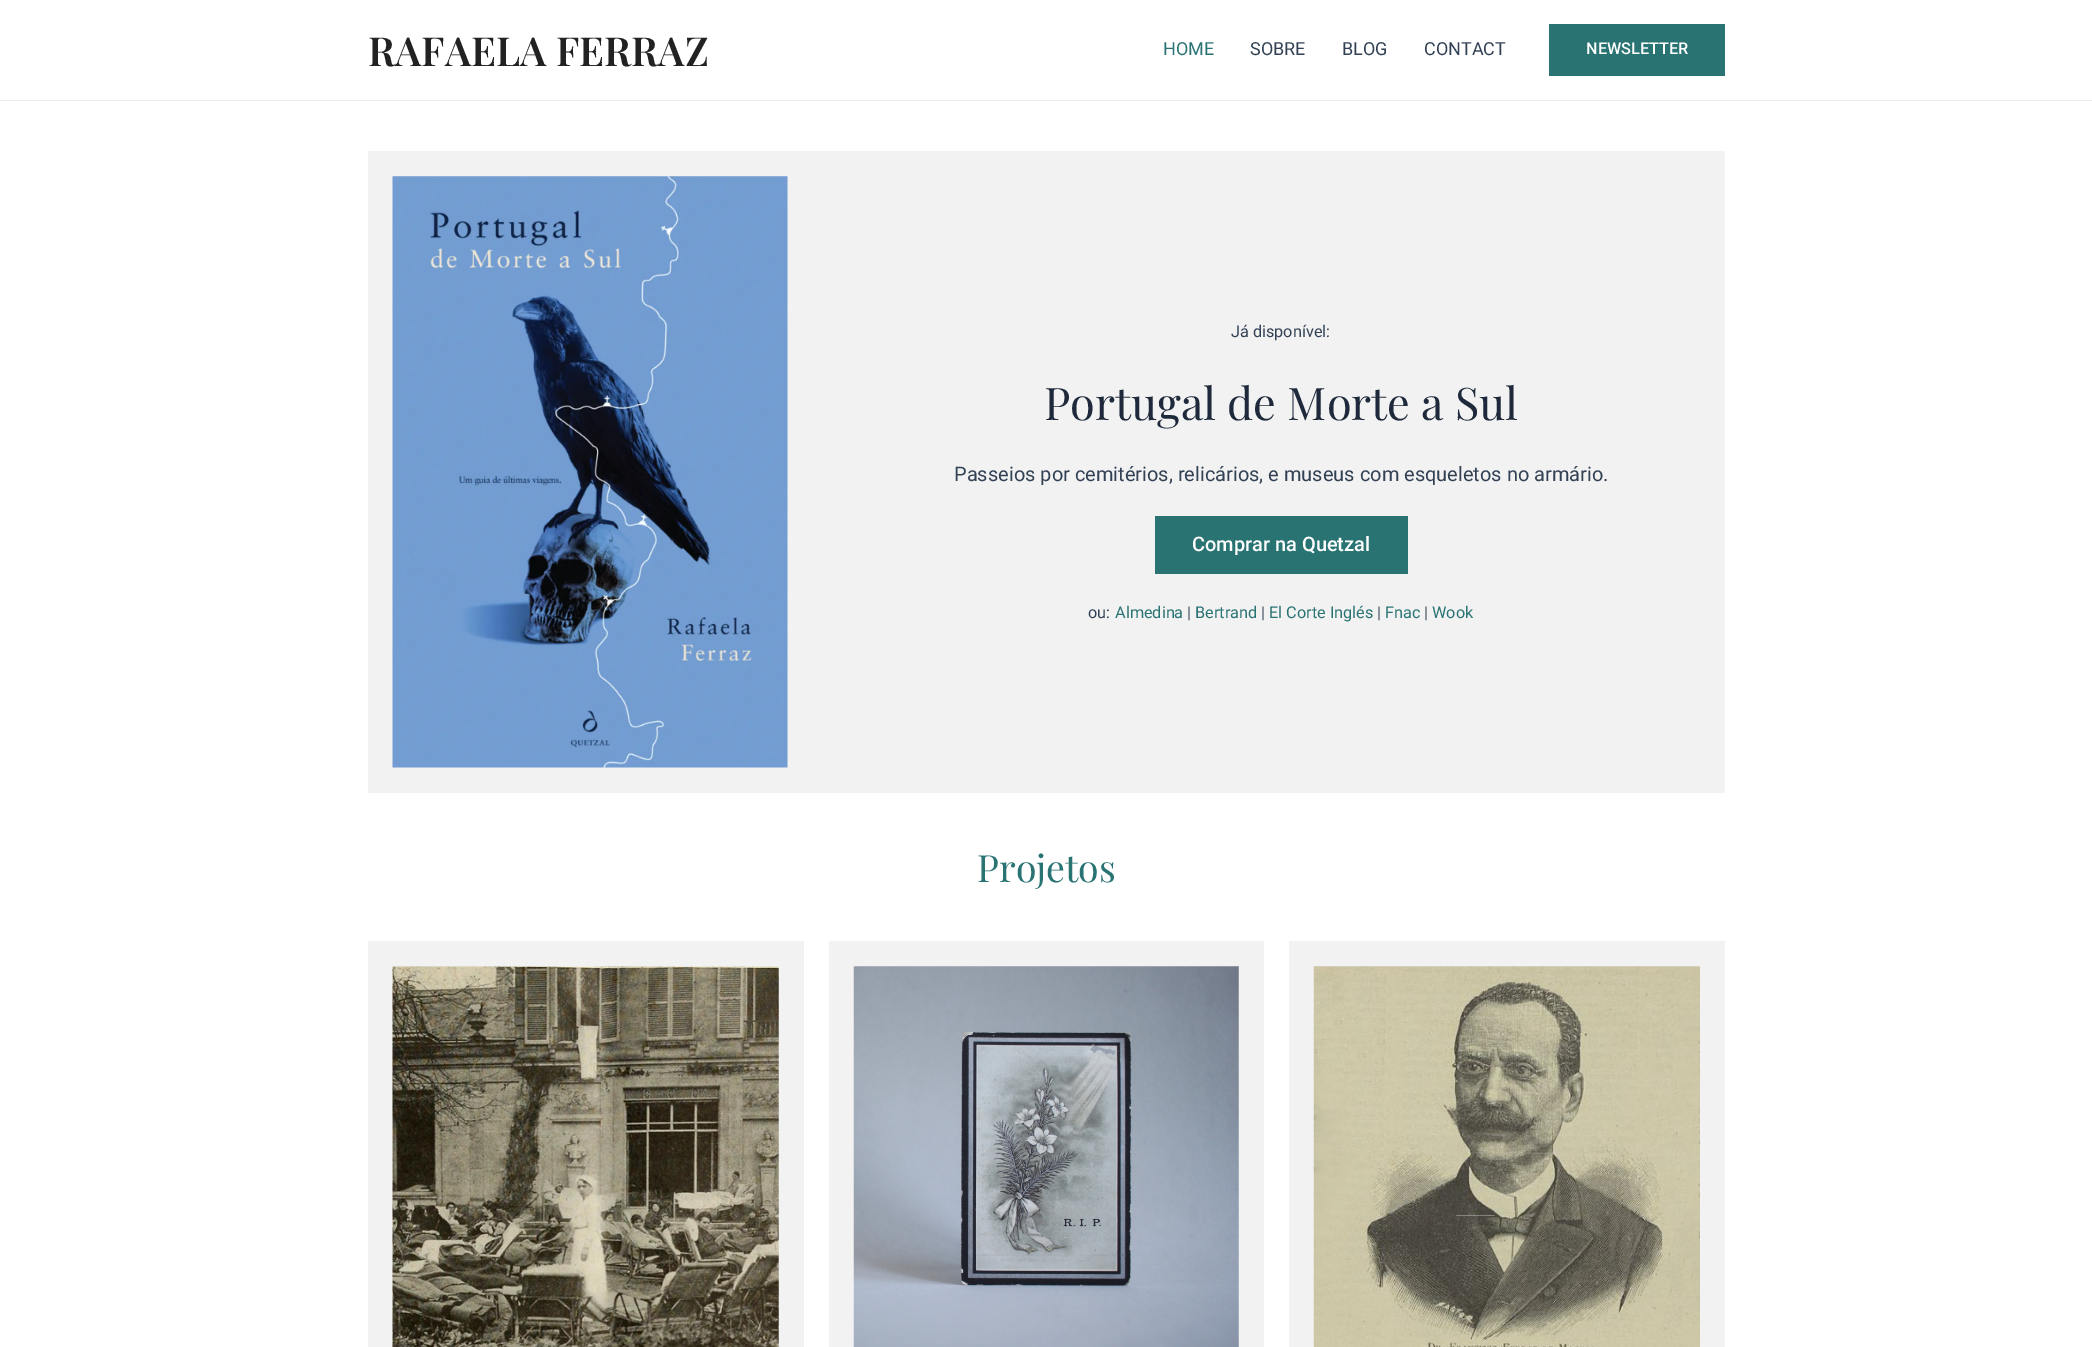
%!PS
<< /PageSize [2092 1347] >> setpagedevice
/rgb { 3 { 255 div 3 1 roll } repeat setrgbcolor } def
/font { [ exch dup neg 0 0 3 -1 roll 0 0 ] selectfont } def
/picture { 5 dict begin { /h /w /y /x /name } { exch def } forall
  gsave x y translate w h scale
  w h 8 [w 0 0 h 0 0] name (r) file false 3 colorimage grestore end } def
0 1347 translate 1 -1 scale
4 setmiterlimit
255 255 255 rgb
0 0 2092 1347 rectfill
[
  [0 100 2092 1 234 234 234]
  [1549 24 176 52 41 115 115]
  [368 151 1357 642 242 242 242]
] { aload pop rgb rectfill } forall
(img/1.rgb) 392 176 396 592 picture
41 115 115 rgb
1155 516 253 58 rectfill
242 242 242 rgb
368 941 436 406 rectfill
(img/2.rgb) 392 966 387 381 picture
829 941 435 406 rectfill
(img/3.rgb) 853 966 386 381 picture
1289 941 436 406 rectfill
(img/4.rgb) 1313 966 387 381 picture
/PlayfairDisplay-SemiBold 40 font
34 34 34 rgb
368 66 moveto (RAFAELA FERRAZ) show
/Roboto-Regular 18 font
41 115 115 rgb
1163 55 moveto (HOME) show
51 65 85 rgb
[
  [(SOBRE) 1250 55]
  [(BLOG) 1342 55]
  [(CONTACT) 1424 55]
] { aload pop moveto show } forall
/Roboto-Medium 16.25 font
255 255 255 rgb
1586 54 moveto (NEWSLETTER) show
/Roboto-Regular 16.25 font
51 65 85 rgb
1231 337 moveto (Já disponível:) show
/PlayfairDisplay-Regular 45 font
30 41 59 rgb
1044 420 moveto (Portugal de Morte a Sul) show
/Roboto-Regular 20 font
51 65 85 rgb
954 481 moveto (Passeios por cemitérios, relicários, e museus com esqueletos no armário.) show
/Roboto-Medium 20 font
255 255 255 rgb
1192 551 moveto (Comprar na Quetzal) show
/Roboto-Regular 16.25 font
51 65 85 rgb
1088 618 moveto (ou:) show
41 115 115 rgb
1115 618 moveto (Almedina) show
51 65 85 rgb
1187 618 moveto (|) show
41 115 115 rgb
1195 618 moveto (Bertrand) show
51 65 85 rgb
1261 618 moveto (|) show
41 115 115 rgb
1269 618 moveto (El Corte Inglés) show
51 65 85 rgb
1377 618 moveto (|) show
41 115 115 rgb
1385 618 moveto (Fnac) show
51 65 85 rgb
1424 618 moveto (|) show
41 115 115 rgb
1432 618 moveto (Wook) show
/PlayfairDisplay-Regular 37.5 font
977 882 moveto (Projetos) show
showpage
